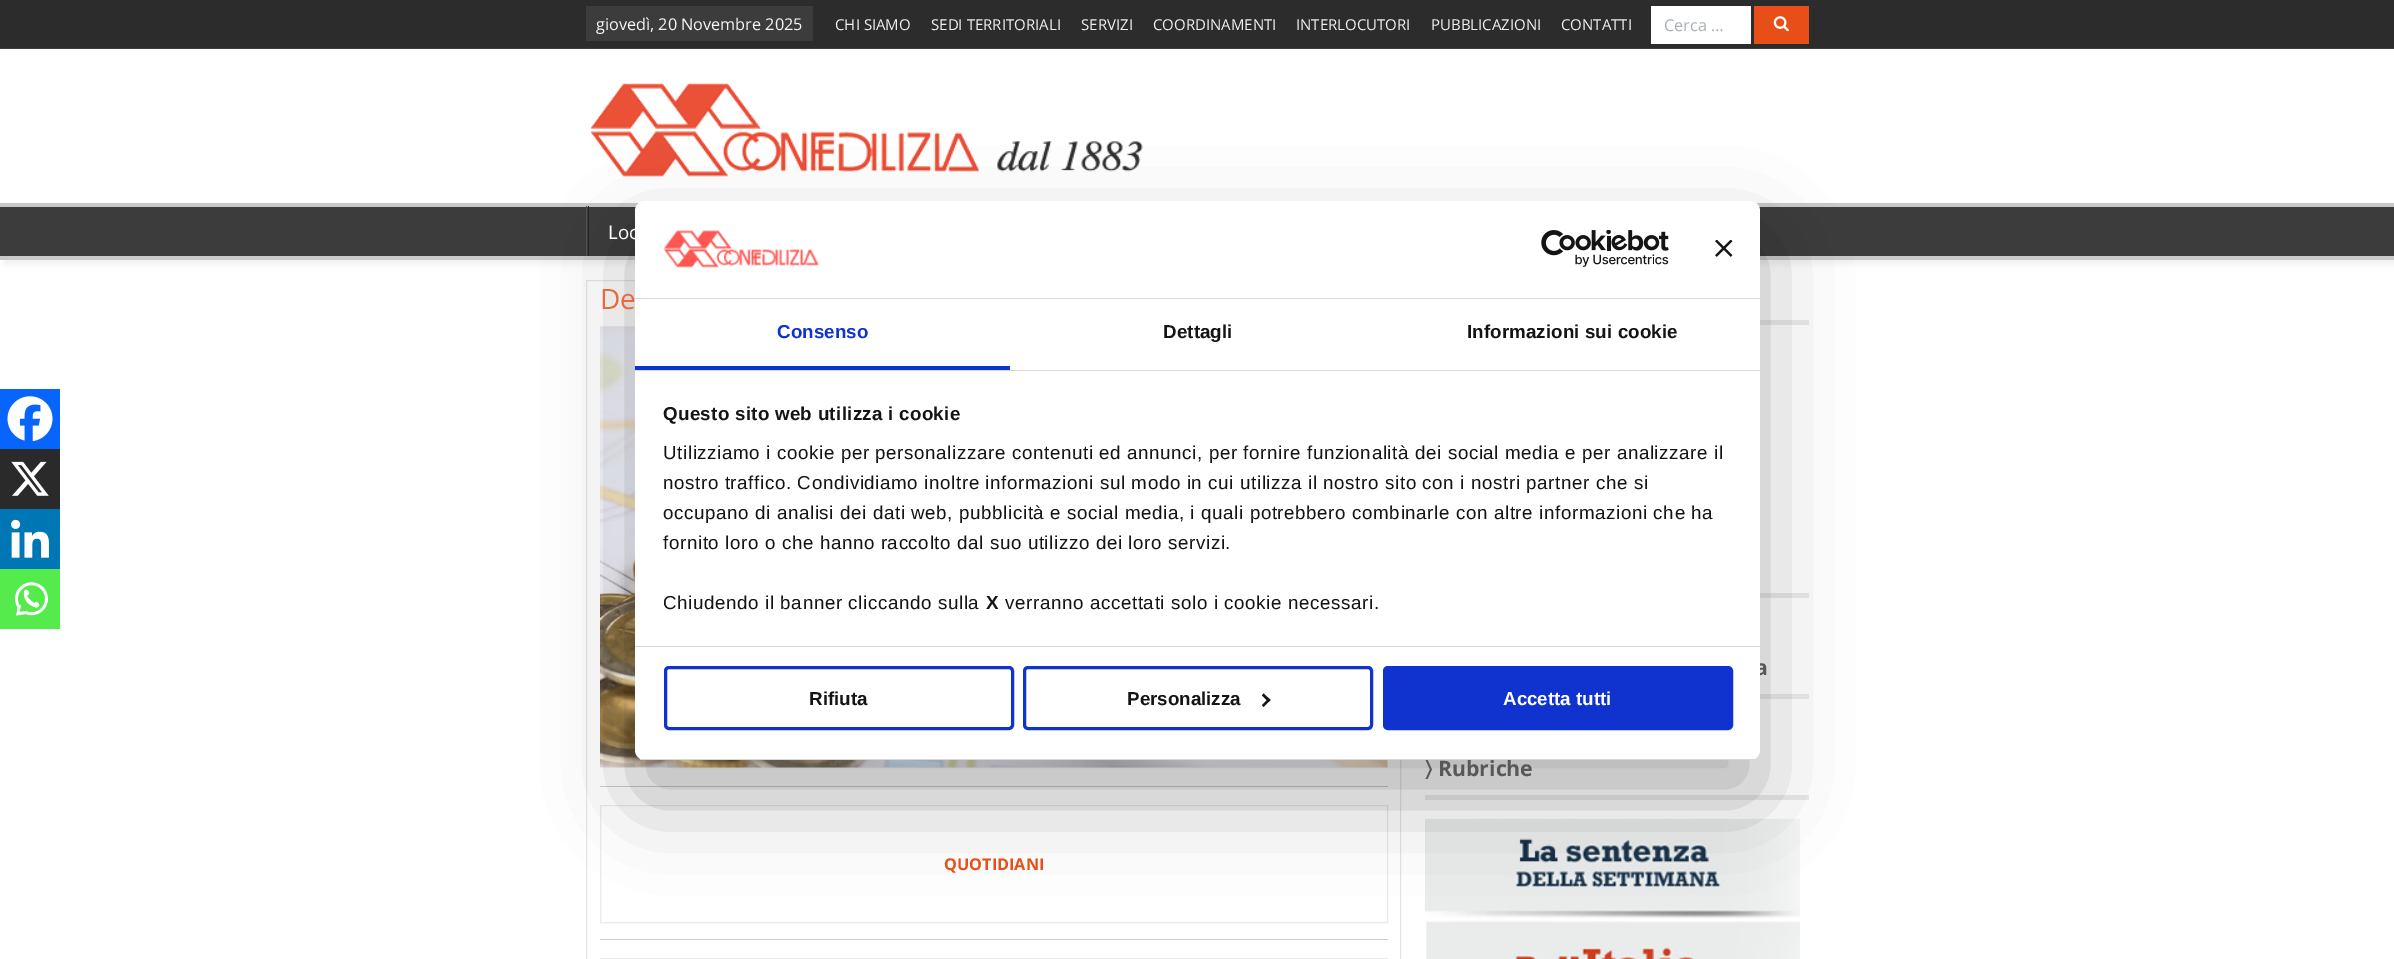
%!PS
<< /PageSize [2394 959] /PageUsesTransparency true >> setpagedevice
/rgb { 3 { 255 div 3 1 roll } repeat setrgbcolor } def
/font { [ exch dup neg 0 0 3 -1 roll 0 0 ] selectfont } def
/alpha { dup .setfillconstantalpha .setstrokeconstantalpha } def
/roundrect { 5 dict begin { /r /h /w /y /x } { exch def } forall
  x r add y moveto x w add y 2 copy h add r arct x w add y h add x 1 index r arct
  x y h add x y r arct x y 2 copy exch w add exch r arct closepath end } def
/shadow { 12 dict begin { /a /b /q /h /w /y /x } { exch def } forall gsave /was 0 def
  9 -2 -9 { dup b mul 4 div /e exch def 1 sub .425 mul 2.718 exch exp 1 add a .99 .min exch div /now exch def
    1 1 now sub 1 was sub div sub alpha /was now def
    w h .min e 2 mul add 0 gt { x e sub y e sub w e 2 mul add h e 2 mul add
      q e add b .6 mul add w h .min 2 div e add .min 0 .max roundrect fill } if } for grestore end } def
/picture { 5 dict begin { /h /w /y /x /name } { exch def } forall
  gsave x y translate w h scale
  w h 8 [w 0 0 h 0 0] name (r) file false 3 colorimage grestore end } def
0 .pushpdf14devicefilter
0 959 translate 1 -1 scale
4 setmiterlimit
255 255 255 rgb
0 0 2394 959 rectfill
[
  [0 0 2394 48 44 44 44]
  [0 48 2394 1 60 60 60]
  [586 6 227 35 60 60 60]
  [1651 6 100 38 255 255 255]
  [1754 6 55 38 232 78 23]
] { aload pop rgb rectfill } forall
(img/1.rgb) 1773 16 16 16 picture
(img/2.rgb) 590 83 553 94 picture
0 0 0 rgb
4 208 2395 57 0 3 0.05 shadow
[
  [0 207 2394 49 60 60 60]
  [0 203 2394 4 201 201 201]
  [0 256 2394 4 201 201 201]
  [586 206 1 50 83 83 83]
  [588 206 1 50 35 35 35]
] { aload pop rgb rectfill } forall
229 229 229 rgb
586.5 280.5 814 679 rectstroke
(img/3.rgb) 600 326 788 442 picture
204 204 204 rgb
600 786 788 1 rectfill
234 234 234 rgb
600.5 805.5 787 117 rectstroke
204 204 204 rgb
600 939 788 1 rectfill
234 234 234 rgb
600.5 958.5 787 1 rectstroke
1760 320 49 5 rectfill
7 101 254 rgb
0 389 60 60 rectfill
(img/4.rgb) 7 396 46 45 picture
42 42 42 rgb
0 449 60 60 rectfill
(img/5.rgb) 11 461 38 35 picture
0 119 181 rgb
0 509 60 60 rectfill
(img/6.rgb) 11 519 38 39 picture
85 235 76 rgb
0 569 60 60 rectfill
(img/7.rgb) 15 582 33 34 picture
[
  [1760 593 49 5 234 234 234]
  [1760 694 49 5 234 234 234]
  [1425 795 384 5 234 234 234]
] { aload pop rgb rectfill } forall
(img/8.rgb) 1425 818 375 101 picture
(img/9.rgb) 1426 920 374 39 picture
0 0 0 rgb
635 241 1125 559 10 42.5 0.3 shadow
/OpenSans-Regular 16.25 font
247 247 247 rgb
596 30 moveto (giovedì, 20 Novembre 2025) show
/OpenSans-Regular 15 font
240 240 240 rgb
[
  [(CHI SIAMO) 835 30]
  [(SEDI TERRITORIALI) 931 30]
  [(SERVIZI) 1081 30]
  [(COORDINAMENTI) 1153 30]
  [(INTERLOCUTORI) 1296 30]
  [(PUBBLICAZIONI) 1431 30]
  [(CONTATTI) 1561 30]
] { aload pop moveto show } forall
/OpenSans-Regular 16.25 font
167 175 183 rgb
1664 31 moveto (Cerca …) show
/OpenSans-Regular 18.75 font
255 255 255 rgb
608 239 moveto (Loc) show
/OpenSans-Regular 28 font
231 105 60 rgb
600 309 moveto (De) show
/OpenSans-Bold 16.25 font
232 78 23 rgb
944 870 moveto (QUOTIDIANI) show
/OpenSans-Bold 21.25 font
88 88 88 rgb
1755 675 moveto (a) show
/FreeSans-Bold 21.25 font
1425 776 moveto (〉) show
/OpenSans-Bold 21.25 font
1438 776 moveto (Rubriche) show
255 255 255 rgb
635 201 1125 559 10 roundrect fill
214 214 214 rgb
635 298 1125 1 rectfill
(img/10.rgb) 663 230 156 38 picture
(img/11.rgb) 1541 230 128 37 picture
(img/12.rgb) 1715 240 18 17 picture
635 370 1125 1 rectfill
16 50 207 rgb
635 366 375 4 rectfill
/LiberationSans-Bold 18.75 font
777 338 moveto 0.1 0 (Consenso) ashow
20 20 20 rgb
1163 338 moveto 0.1 0 (Dettagli) ashow
1467 338 moveto 0.1 0 (Informazioni sui cookie) ashow
214 214 214 rgb
635 646 1125 1 rectfill
20 20 20 rgb
663 420 moveto 0.3 0 (Questo sito web utilizza i cookie) ashow
/LiberationSans-Regular 18.75 font
663 459 moveto 0.62 0 (Utilizziamo i cookie per personalizzare contenuti ed annunci, per fornire funzionalità dei social media e per analizzare il) ashow
663 489 moveto 0.62 0 (nostro traffico. Condividiamo inoltre informazioni sul modo in cui utilizza il nostro sito con i nostri partner che si) ashow
663 519 moveto 0.62 0 (occupano di analisi dei dati web, pubblicità e social media, i quali potrebbero combinarle con altre informazioni che ha) ashow
663 549 moveto 0.62 0 (fornito loro o che hanno raccolto dal suo utilizzo dei loro servizi.) ashow
663 609 moveto 0.62 0 (Chiudendo il banner cliccando sulla) ashow
/LiberationSans-Bold 18.75 font
986 609 moveto 0.62 0 (X) ashow
/LiberationSans-Regular 18.75 font
1005 609 moveto 0.62 0 (verranno accettati solo i cookie necessari.) ashow
gsave
635 201 1125 559 10 roundrect clip newpath
214 214 214 rgb
635 759 1125 1 rectfill
grestore
16 50 207 rgb
3 setlinewidth
665.5 667.5 347 61 3.5 roundrect stroke
/LiberationSans-Bold 18.75 font
20 20 20 rgb
809 705 moveto (Rifiuta) show
16 50 207 rgb
1024.5 667.5 347 61 3.5 roundrect stroke
20 20 20 rgb
1127 705 moveto (Personalizza) show
1263.5 693.5 moveto 1270.5 700 lineto 1268.5 702 lineto 1262 695.5 lineto closepath fill
1268.5 698.5 moveto 1270.5 700 lineto 1263.5 707 lineto 1262 705 lineto closepath fill
16 50 207 rgb
1384.5 667.5 347 61 3.5 roundrect gsave fill grestore
stroke
255 255 255 rgb
1503 705 moveto (Accetta tutti) show
.poppdf14devicefilter showpage
